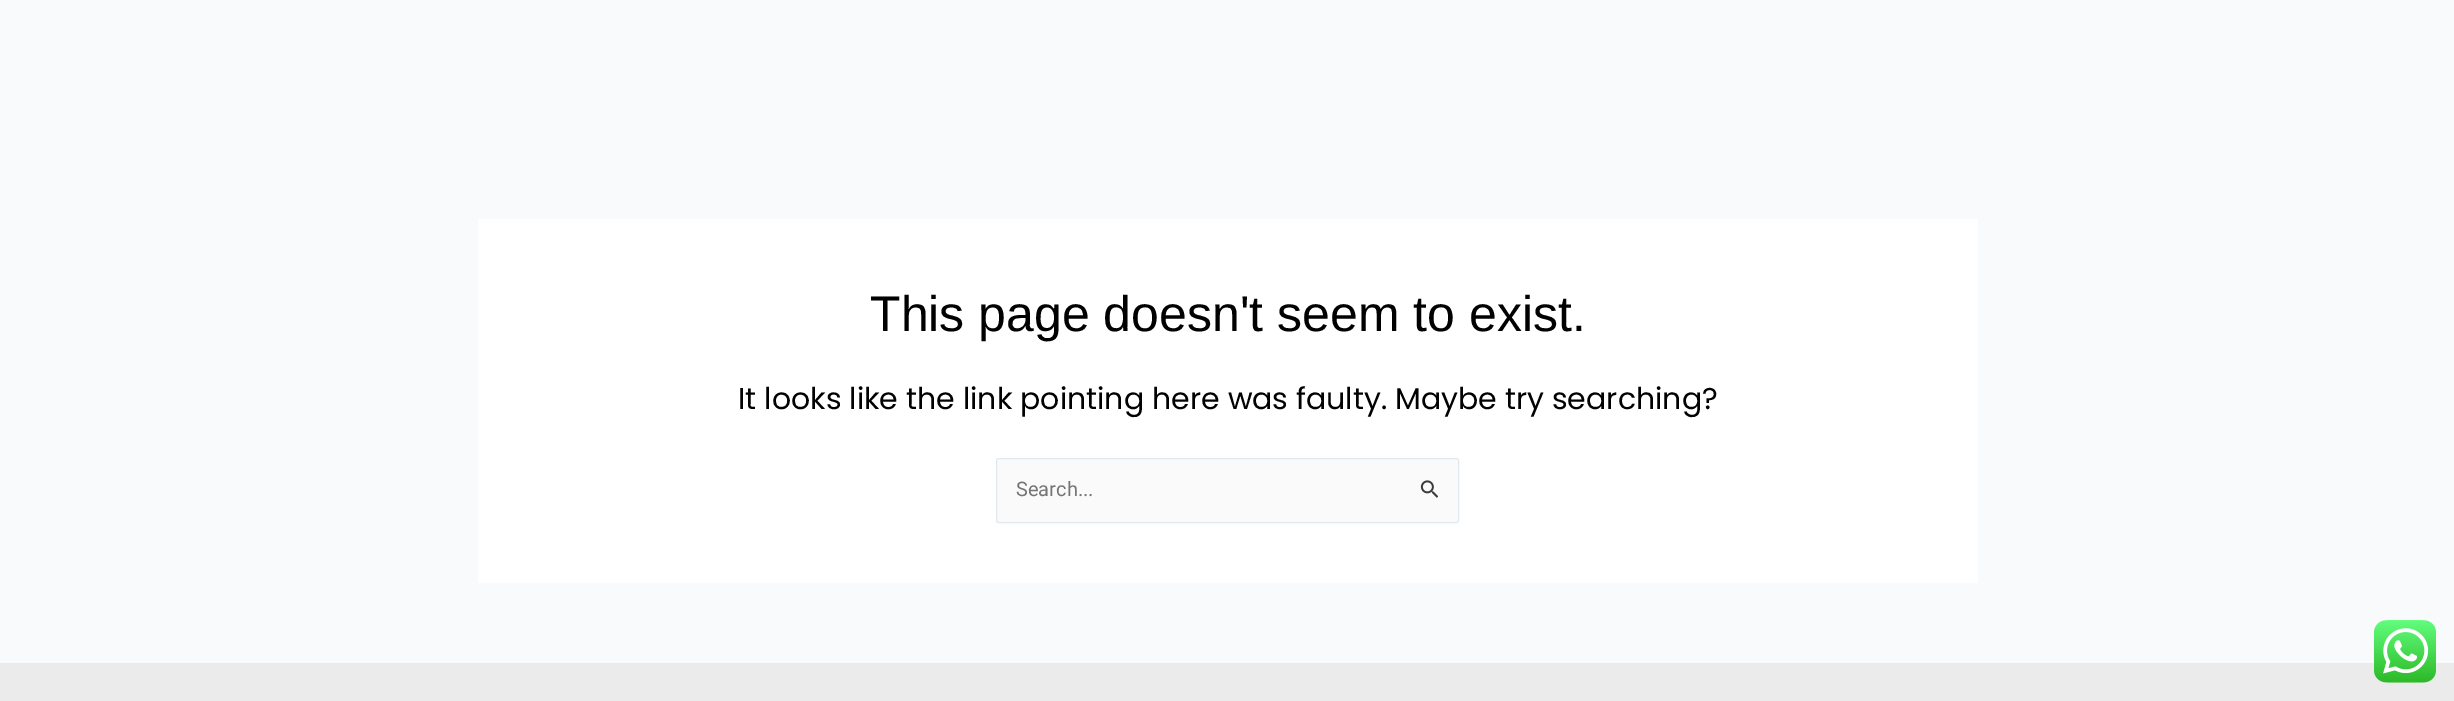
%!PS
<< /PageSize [2454 701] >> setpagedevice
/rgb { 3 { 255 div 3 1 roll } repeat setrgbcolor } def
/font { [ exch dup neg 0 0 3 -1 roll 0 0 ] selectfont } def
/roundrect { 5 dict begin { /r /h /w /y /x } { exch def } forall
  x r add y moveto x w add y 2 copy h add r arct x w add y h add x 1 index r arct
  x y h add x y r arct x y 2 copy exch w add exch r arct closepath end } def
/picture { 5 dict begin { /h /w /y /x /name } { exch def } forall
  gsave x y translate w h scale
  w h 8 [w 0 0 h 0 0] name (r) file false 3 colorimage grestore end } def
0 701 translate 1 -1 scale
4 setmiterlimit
249 250 251 rgb
0 0 2454 701 rectfill
255 255 255 rgb
478 219 1500 364 rectfill
250 250 250 rgb
996.5 458.5 462 64 2 roundrect gsave fill grestore
226 232 240 rgb
stroke
(img/1.rgb) 1420 480 18 18 picture
235 235 235 rgb
0 663 2454 38 rectfill
(img/2.rgb) 2374 620 62 63 picture
/LiberationSans-Regular 50 font
1 1 1 rgb
870 331 moveto (This page doesn't seem to exist.) show
/Poppins-Regular 30 font
738 409 moveto (It looks like the link pointing here was faulty. Maybe try searching?) show
/Roboto-Regular 20 font
117 117 117 rgb
1016 496 moveto (Search...) show
showpage
